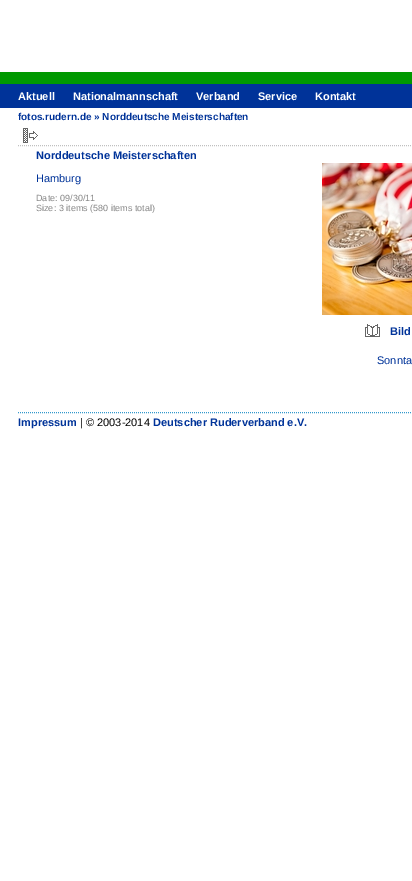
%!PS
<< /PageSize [412 881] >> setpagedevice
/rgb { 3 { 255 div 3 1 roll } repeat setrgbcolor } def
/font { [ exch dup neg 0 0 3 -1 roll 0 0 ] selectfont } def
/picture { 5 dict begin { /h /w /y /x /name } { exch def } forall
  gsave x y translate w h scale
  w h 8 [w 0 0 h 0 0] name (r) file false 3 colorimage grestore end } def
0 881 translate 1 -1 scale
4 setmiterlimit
255 255 255 rgb
0 0 412 881 rectfill
0 51 153 rgb
0 84 412 24 rectfill
0 153 0 rgb
0 72 412 12 rectfill
192 192 192 rgb
[1 1] 0 setdash
18 145.5 moveto 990 145.5 lineto stroke
(img/1.rgb) 23 128 15 15 picture
(img/2.rgb) 322 163 90 152 picture
(img/3.rgb) 365 324 15 13 picture
51 153 204 rgb
18 412.5 moveto 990 412.5 lineto stroke
/LiberationSans-Bold 11 font
255 255 255 rgb
[
  [(Aktuell) 18 100]
  [(Nationalmannschaft) 73 100]
  [(Verband) 196 100]
  [(Service) 258 100]
  [(Kontakt) 315 100]
] { aload pop moveto show } forall
/LiberationSans-Bold 10 font
0 51 153 rgb
18 120 moveto (fotos.rudern.de » Norddeutsche Meisterschaften) show
/LiberationSans-Bold 11 font
36 159 moveto (Norddeutsche Meisterschaften) show
/LiberationSans-Regular 11 font
36 182 moveto (Hamburg) show
/LiberationSans-Regular 9 font
136 136 136 rgb
36 201 moveto (Date: 09/30/11) show
36 211 moveto (Size: 3 items \(580 items total\)) show
/LiberationSans-Bold 11 font
0 51 153 rgb
390 335 moveto (Bild) show
/LiberationSans-Regular 11 font
377 364 moveto (Sonnta) show
/LiberationSans-Bold 11 font
18 426 moveto (Impressum) show
/LiberationSans-Regular 11 font
0 0 0 rgb
80 426 moveto (| © 2003-2014) show
/LiberationSans-Bold 11 font
0 51 153 rgb
153 426 moveto (Deutscher Ruderverband e.V.) show
showpage
